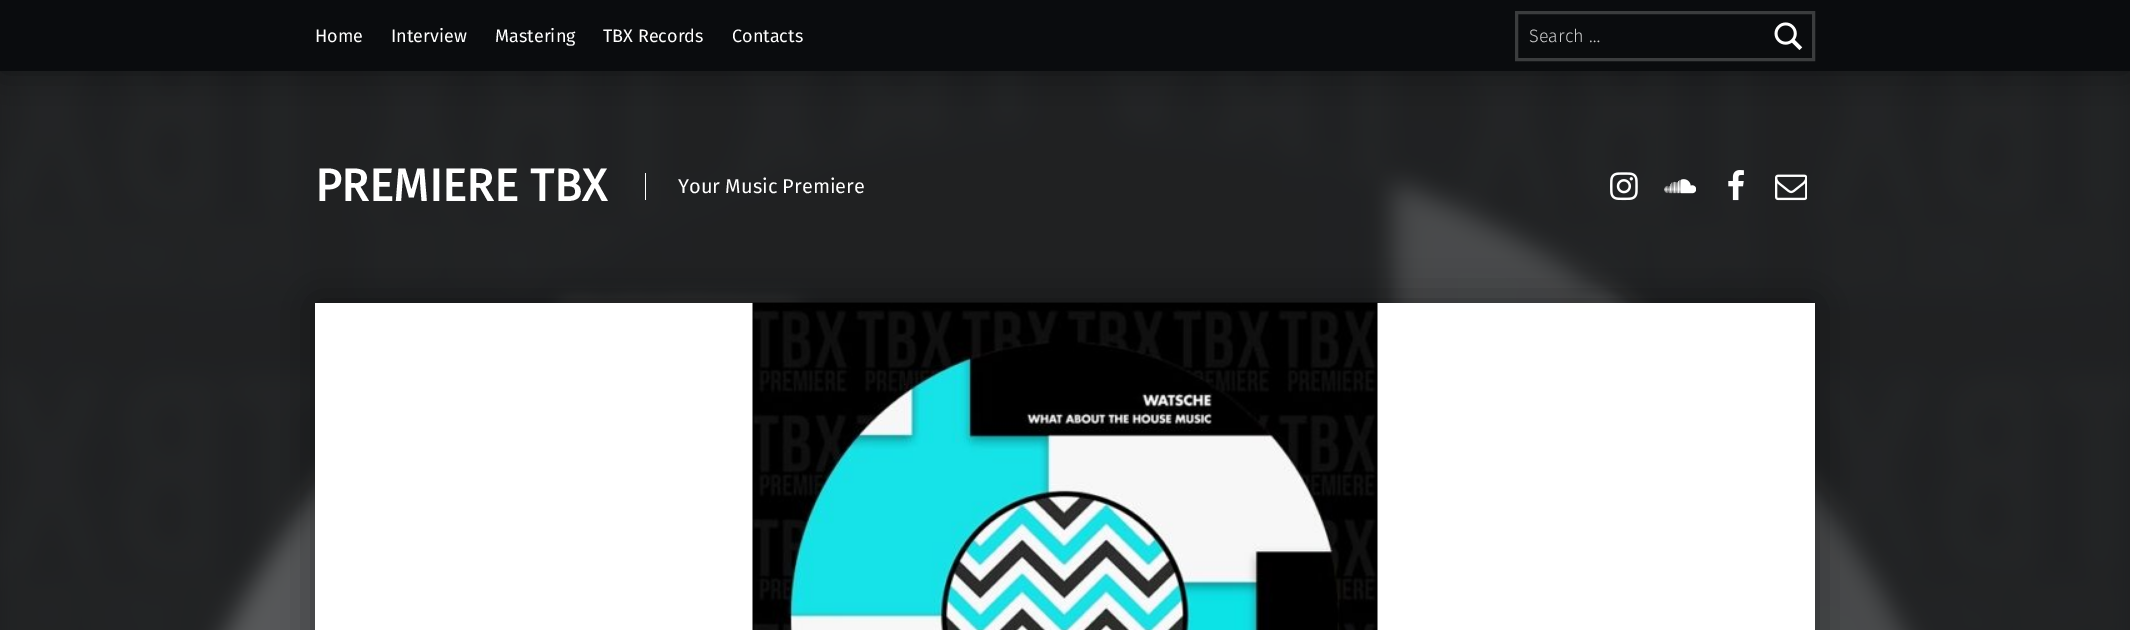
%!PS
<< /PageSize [2130 630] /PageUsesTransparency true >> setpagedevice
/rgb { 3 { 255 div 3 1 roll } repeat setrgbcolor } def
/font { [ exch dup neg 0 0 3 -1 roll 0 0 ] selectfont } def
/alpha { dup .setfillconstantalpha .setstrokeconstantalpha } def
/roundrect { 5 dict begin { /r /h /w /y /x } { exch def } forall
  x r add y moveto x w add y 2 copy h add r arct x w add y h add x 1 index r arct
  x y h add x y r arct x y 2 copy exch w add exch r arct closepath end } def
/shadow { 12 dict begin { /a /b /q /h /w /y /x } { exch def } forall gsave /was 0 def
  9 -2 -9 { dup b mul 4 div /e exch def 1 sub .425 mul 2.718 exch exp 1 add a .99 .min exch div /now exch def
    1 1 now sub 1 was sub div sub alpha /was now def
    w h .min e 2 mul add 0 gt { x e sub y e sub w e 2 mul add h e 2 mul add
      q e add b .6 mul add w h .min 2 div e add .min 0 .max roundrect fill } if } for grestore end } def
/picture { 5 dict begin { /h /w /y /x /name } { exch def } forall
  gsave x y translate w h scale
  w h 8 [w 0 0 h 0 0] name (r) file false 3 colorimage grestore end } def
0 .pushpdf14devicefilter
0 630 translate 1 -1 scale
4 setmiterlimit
255 255 255 rgb
0 0 2130 630 rectfill
(img/6.rgb) 0 71 2130 559 picture
0 0 0 rgb
0 0 2130 71 0 20 0.4 shadow
10 12 14 rgb
0 0 2130 71 rectfill
59 61 62 rgb
3 setlinewidth
1516.5 12.5 297 47 rectstroke
(img/1.rgb) 1774 22 29 28 picture
255 255 255 rgb
645 173 1 27 rectfill
(img/2.rgb) 1610 172 28 29 picture
(img/3.rgb) 1664 179 32 15 picture
(img/4.rgb) 1728 170 16 31 picture
(img/5.rgb) 1775 174 32 27 picture
0 0 0 rgb
315 303 1500 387 0 20 0.4 shadow
255 255 255 rgb
315 303 1500 327 rectfill
(img/7.rgb) 752 302 626 328 picture
/FiraSans-Regular 18 font
[
  [(Home) 315 42]
  [(Interview) 391 42]
  [(Mastering) 495 42]
  [(TBX Records) 603 42]
  [(Contacts) 732 42]
] { aload pop moveto show } forall
/FiraSans-Light 18 font
206 206 207 rgb
1529 42 moveto (Search …) show
/FiraSans-Bold 45.5 font
255 255 255 rgb
315 201 moveto (PREMIERE TBX) show
/FiraSans-Regular 20 font
678 193 moveto (Your Music Premiere) show
.poppdf14devicefilter showpage
